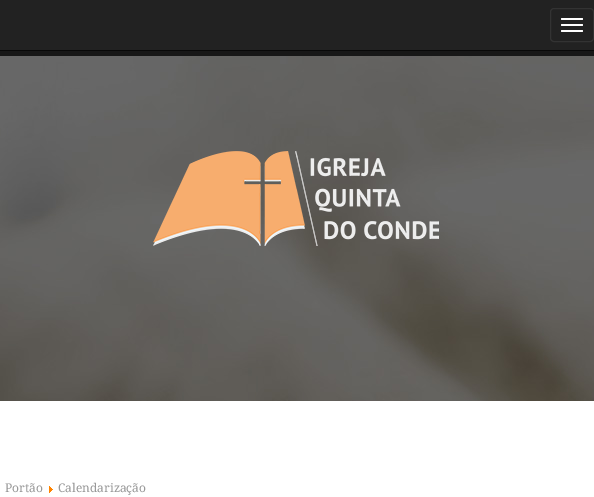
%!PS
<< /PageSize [594 497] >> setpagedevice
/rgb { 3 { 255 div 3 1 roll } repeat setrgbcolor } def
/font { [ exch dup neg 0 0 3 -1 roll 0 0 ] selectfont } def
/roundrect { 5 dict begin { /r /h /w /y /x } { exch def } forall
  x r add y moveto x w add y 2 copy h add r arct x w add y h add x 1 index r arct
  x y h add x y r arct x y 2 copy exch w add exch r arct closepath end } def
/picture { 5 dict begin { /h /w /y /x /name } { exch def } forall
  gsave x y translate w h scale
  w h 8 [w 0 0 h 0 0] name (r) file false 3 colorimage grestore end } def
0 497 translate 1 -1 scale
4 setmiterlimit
23 23 23 rgb
0 0 594 497 rectfill
(img/1.rgb) 0 56 594 345 picture
34 34 34 rgb
0 0 594 50 rectfill
8 8 8 rgb
0 50 594 1 rectfill
51 51 51 rgb
550.5 8.5 43 33 3.5 roundrect stroke
255 255 255 rgb
561 18 22 2 1 roundrect fill
561 24 22 2 1 roundrect fill
561 30 22 2 1 roundrect fill
(img/2.rgb) 153 151 286 95 picture
0 401 594 96 rectfill
(img/3.rgb) 49 486 4 7 picture
/DroidSerif-Regular 12 font
153 153 153 rgb
5 492 moveto (Portão) show
58 492 moveto (Calendarização) show
showpage
